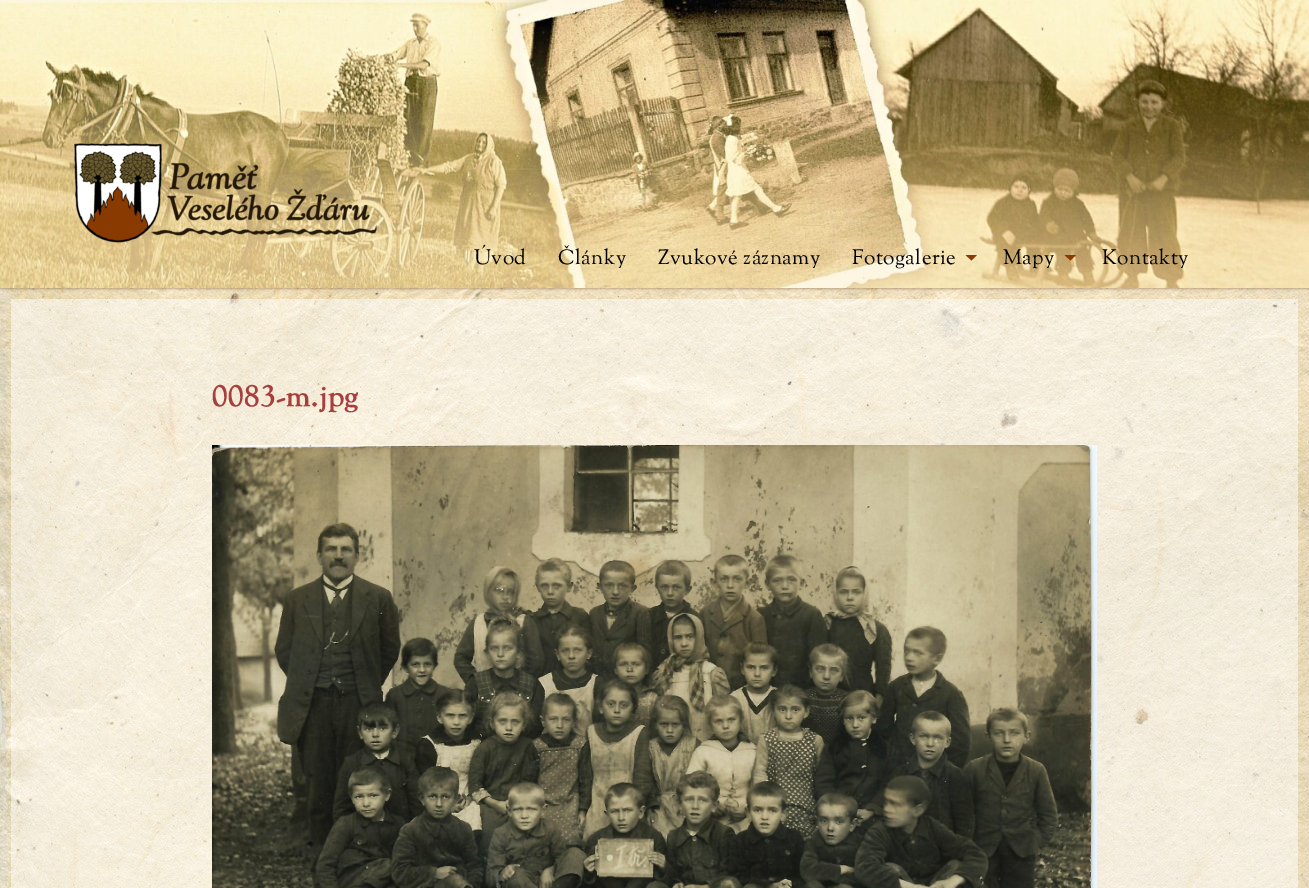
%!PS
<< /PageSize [1309 888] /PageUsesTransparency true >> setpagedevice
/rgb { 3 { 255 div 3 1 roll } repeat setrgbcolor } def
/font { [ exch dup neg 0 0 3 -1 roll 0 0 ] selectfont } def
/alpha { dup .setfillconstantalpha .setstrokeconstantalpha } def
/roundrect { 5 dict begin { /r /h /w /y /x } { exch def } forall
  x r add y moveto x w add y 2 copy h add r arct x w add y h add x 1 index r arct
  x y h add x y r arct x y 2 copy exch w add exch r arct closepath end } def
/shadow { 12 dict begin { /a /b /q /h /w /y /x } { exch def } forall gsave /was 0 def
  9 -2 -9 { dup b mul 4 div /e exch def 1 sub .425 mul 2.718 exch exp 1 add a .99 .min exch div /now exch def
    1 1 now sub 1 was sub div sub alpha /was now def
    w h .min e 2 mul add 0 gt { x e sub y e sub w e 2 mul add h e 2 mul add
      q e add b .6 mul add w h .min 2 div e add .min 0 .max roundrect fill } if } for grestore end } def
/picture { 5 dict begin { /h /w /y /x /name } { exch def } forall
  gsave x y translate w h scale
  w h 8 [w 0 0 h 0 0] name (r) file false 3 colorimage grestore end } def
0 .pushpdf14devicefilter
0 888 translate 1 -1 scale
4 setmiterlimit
255 255 255 rgb
0 0 1309 888 rectfill
(img/1.rgb) 0 288 1309 600 picture
77 40 8 rgb
0 -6 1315 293 0 2 1 shadow
(img/2.rgb) 0 0 1309 288 picture
(img/3.rgb) 74 143 303 100 picture
137 58 1 rgb
965.5 255 moveto 977 255 lineto 971.5 260.5 lineto closepath fill
1064.5 255 moveto 1076 255 lineto 1070.5 260.5 lineto closepath fill
0.5 alpha
255 255 255 rgb
11 299 1287 589 rectfill
1 alpha
(img/4.rgb) 212 445 885 443 picture
/SortsMillGoudy-Regular 20.75 font
0 0 0 rgb
474 264 moveto 0.4 0 (Úvod) ashow
558 264 moveto 0.4 0 (Články) ashow
658 264 moveto 0.4 0 (Zvukové záznamy) ashow
852 264 moveto 0.4 0 (Fotogalerie) ashow
1003 264 moveto 0.4 0 (Mapy) ashow
1102 264 moveto 0.4 0 (Kontakty) ashow
/SortsMillGoudy-Bold 29.5 font
168 62 62 rgb
212 406 moveto 0.4 0 (0083-m.jpg) ashow
.poppdf14devicefilter showpage
